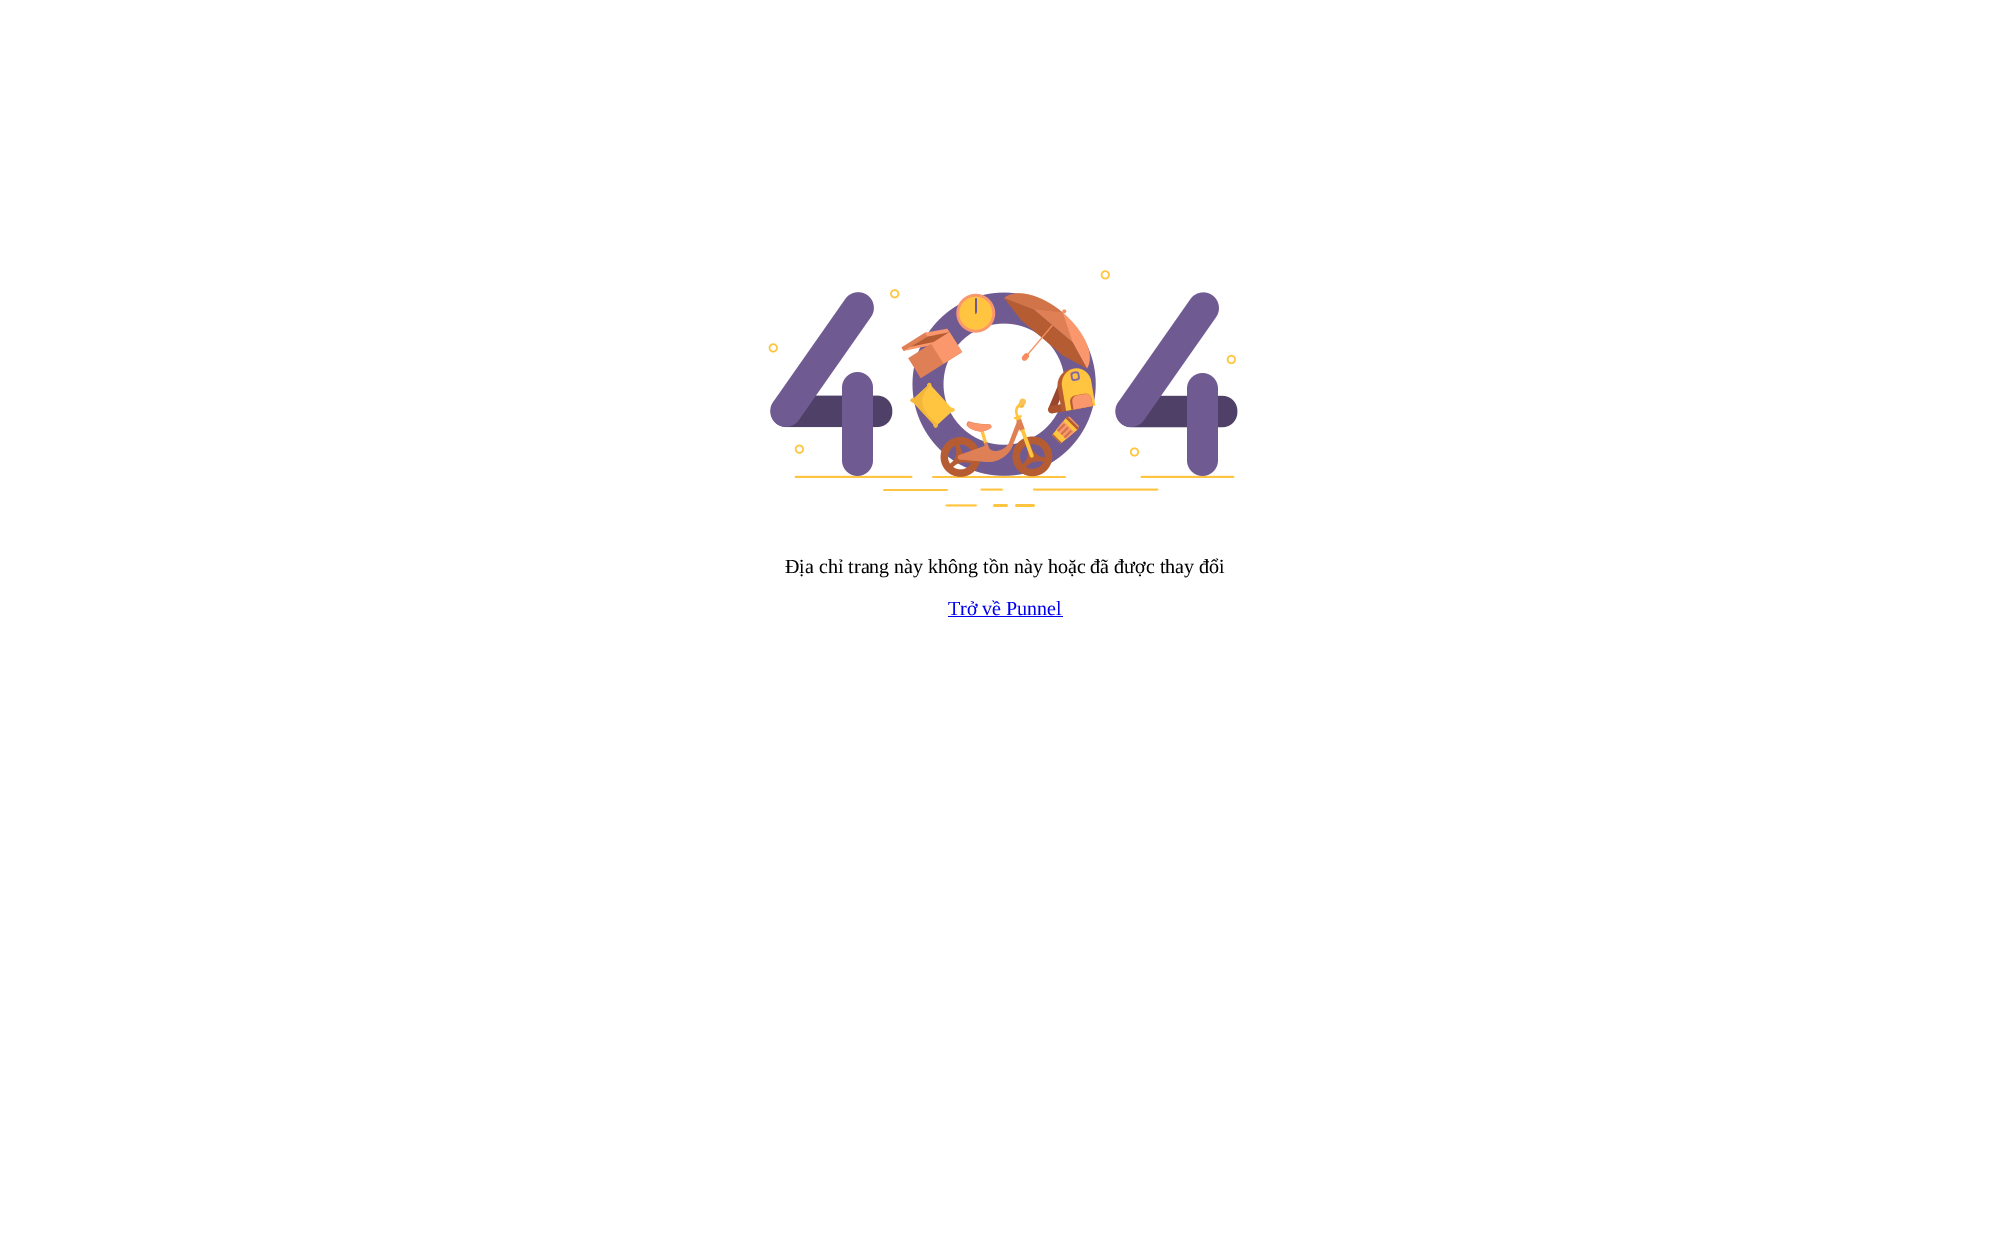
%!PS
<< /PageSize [2009 1247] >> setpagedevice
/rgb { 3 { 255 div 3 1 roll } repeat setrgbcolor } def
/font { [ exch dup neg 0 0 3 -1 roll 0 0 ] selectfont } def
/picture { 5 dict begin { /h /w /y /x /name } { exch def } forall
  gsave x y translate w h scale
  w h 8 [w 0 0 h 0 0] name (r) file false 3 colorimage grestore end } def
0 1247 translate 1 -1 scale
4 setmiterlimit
255 255 255 rgb
0 0 2009 1247 rectfill
(img/1.rgb) 768 270 470 237 picture
0 0 238 rgb
948 616 115 1 rectfill
/LiberationSerif-Regular 20 font
0 0 0 rgb
785 573 moveto (Địa chỉ trang này không tồn này hoặc đã được thay đổi) show
0 0 238 rgb
948 615 moveto (Trở về Punnel) show
showpage
